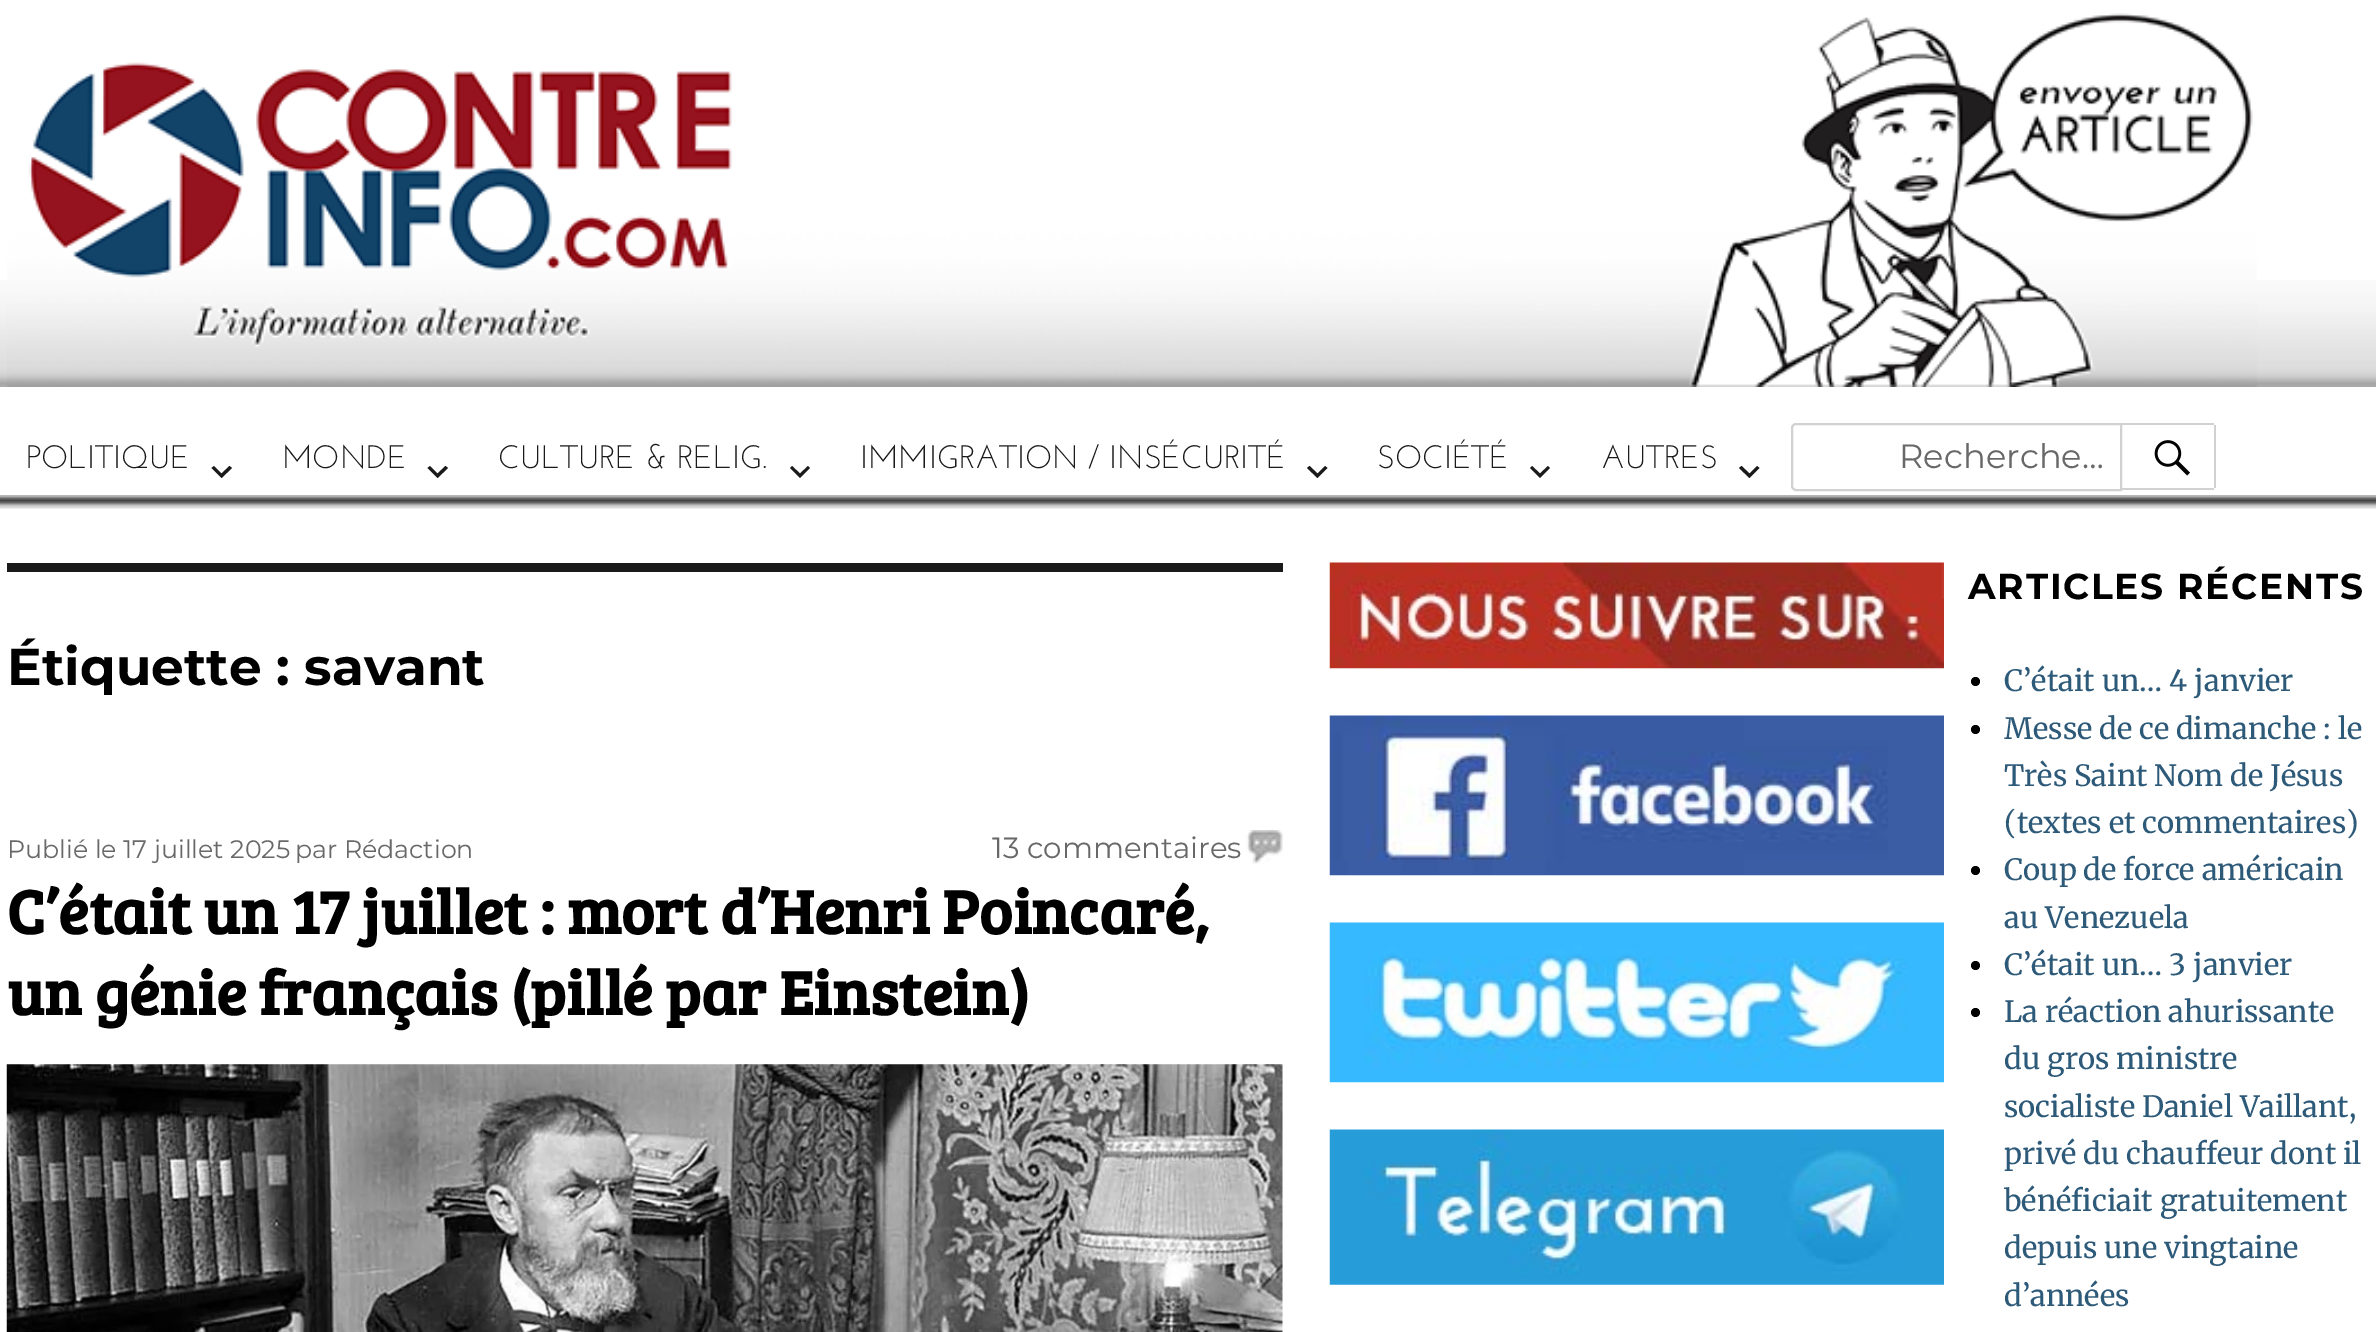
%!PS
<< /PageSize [2376 1332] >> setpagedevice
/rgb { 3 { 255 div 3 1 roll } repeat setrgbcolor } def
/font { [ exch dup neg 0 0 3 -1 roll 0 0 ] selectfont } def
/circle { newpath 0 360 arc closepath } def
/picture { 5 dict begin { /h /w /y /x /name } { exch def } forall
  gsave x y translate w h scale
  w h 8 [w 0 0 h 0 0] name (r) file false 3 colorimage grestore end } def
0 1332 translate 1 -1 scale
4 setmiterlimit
255 255 255 rgb
0 0 2376 1332 rectfill
(img/1.rgb) 0 280 2376 107 picture
(img/2.rgb) 7 13 2250 374 picture
(img/3.rgb) 0 495 2376 14 picture
26 26 26 rgb
229.5 466 moveto 232 468 lineto 221.5 478 lineto 211.5 468 lineto 214 466 lineto 221.5 473.5 lineto closepath fill
445.5 466 moveto 448 468 lineto 437.5 478 lineto 427.5 468 lineto 430 466 lineto 437.5 473.5 lineto closepath fill
808 466 moveto 810 468 lineto 800 478 lineto 790 468 lineto 792 466 lineto 800 473.5 lineto closepath fill
1325 466 moveto 1327.5 468 lineto 1317.5 478 lineto 1307 468 lineto 1309.5 466 lineto 1317.5 473.5 lineto closepath fill
1548 466 moveto 1550 468 lineto 1540 478 lineto 1530 468 lineto 1532 466 lineto 1540 473.5 lineto closepath fill
1757 466 moveto 1759.5 468 lineto 1749.5 478 lineto 1739 468 lineto 1741.5 466 lineto 1749.5 473.5 lineto closepath fill
209 209 209 rgb
2 setlinewidth
1796 424 moveto 2121 424 lineto 2121 490 lineto 1796 490 lineto 1794 490 1792 488 1792 486 curveto 1792 428 lineto 1792 426 1794 424 1796 424 curveto closepath stroke
[
  [2122 423 92 2 209 209 209]
  [2214 425 2 63 209 209 209]
  [2122 488 92 2 209 209 209]
] { aload pop rgb rectfill } forall
(img/4.rgb) 2154 440 36 36 picture
26 26 26 rgb
7 563 1276 9 rectfill
(img/5.rgb) 1246 830 37 34 picture
(img/6.rgb) 6 1064 1277 268 picture
(img/7.rgb) 1329 562 615 107 picture
(img/8.rgb) 1329 715 615 161 picture
(img/9.rgb) 1329 922 615 161 picture
(img/10.rgb) 1329 1129 615 156 picture
0 0 0 rgb
1975.5 681.5 4.5 circle fill
1975.5 729.5 4.5 circle fill
1975.5 870.5 4.5 circle fill
1975.5 965.5 4.5 circle fill
1975.5 1012.5 4.5 circle fill
/JosefinSans-Regular 32.4 font
26 26 26 rgb
[
  [(POLITIQUE) 26 468]
  [(MONDE) 282 468]
  [(CULTURE & RELIG.) 498 468]
  [(IMMIGRATION / INSÉCURITÉ) 860 468]
  [(SOCIÉTÉ) 1377 468]
  [(AUTRES) 1601 468]
] { aload pop moveto show } forall
/Montserrat-Regular 33.75 font
104 104 104 rgb
1899 468 moveto (Recherche…) show
/Montserrat-Bold 51.75 font
0 0 0 rgb
7 685 moveto (Étiquette : savant) show
/Montserrat-Regular 25.25 font
104 104 104 rgb
7 858 moveto (Publié le 17 juillet 2025) show
295 858 moveto (par Rédaction) show
/Montserrat-Regular 29.25 font
992 858 moveto (13 commentaires) show
/BreeSerif-Bold 63 font
0 0 0 rgb
7 934 moveto (C’était un 17 juillet : mort d’Henri Poincaré,) show
7 1015 moveto (un génie français \(pillé par Einstein\)) show
/Montserrat-Bold 36 font
1968 599 moveto 1.75 0 (ARTICLES RÉCENTS) ashow
/Merriweather-Regular 29.25 font
46 90 122 rgb
[
  [(C’était un… 4 janvier) 2004 691]
  [(Messe de ce dimanche : le) 2004 739]
  [(Très Saint Nom de Jésus) 2004 786]
  [(\(textes et commentaires\)) 2004 833]
  [(Coup de force américain) 2004 880]
  [(au Venezuela) 2004 928]
  [(C’était un… 3 janvier) 2004 975]
  [(La réaction ahurissante) 2004 1022]
  [(du gros ministre) 2004 1069]
  [(socialiste Daniel Vaillant,) 2004 1117]
  [(privé du chauffeur dont il) 2004 1164]
  [(bénéficiait gratuitement) 2004 1211]
  [(depuis une vingtaine) 2004 1258]
  [(d’années) 2004 1306]
] { aload pop moveto show } forall
showpage
